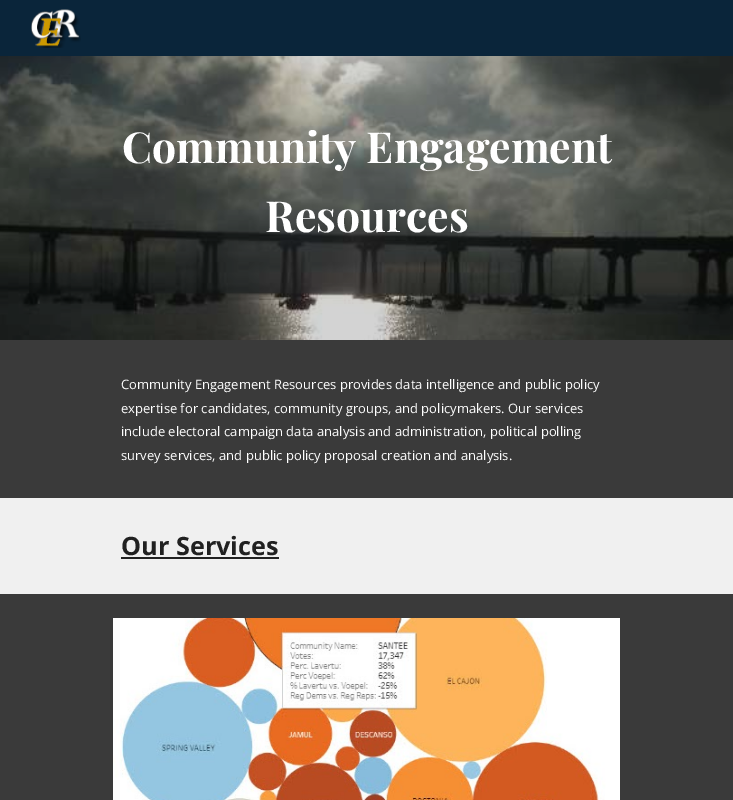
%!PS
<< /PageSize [733 800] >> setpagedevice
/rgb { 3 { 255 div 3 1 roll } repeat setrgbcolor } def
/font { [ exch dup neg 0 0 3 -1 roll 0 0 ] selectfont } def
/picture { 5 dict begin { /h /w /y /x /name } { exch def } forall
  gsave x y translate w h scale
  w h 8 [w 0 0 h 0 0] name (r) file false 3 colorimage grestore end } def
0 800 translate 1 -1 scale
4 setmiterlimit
255 255 255 rgb
0 0 733 800 rectfill
10 37 58 rgb
0 0 733 56 rectfill
(img/1.rgb) 31 9 50 39 picture
(img/2.rgb) 0 56 733 284 picture
[
  [0 340 733 158 58 58 58]
  [0 498 733 96 240 240 240]
  [121 557 158 2 33 33 33]
  [0 594 733 206 58 58 58]
] { aload pop rgb rectfill } forall
(img/3.rgb) 113 618 507 182 picture
/PlayfairDisplay-Bold 42.75 font
255 255 255 rgb
122 163 moveto (Community Engagement) show
265 232 moveto (Resources) show
/OpenSans-Regular 13 font
[
  [(Community Engagement Resources provides data intelligence and public policy) 121 389]
  [(expertise for candidates, community groups, and policymakers. Our services) 121 413]
  [(include electoral campaign data analysis and administration, political polling) 121 436]
  [(survey services, and public policy proposal creation and analysis.) 121 460]
] { aload pop moveto show } forall
/OpenSans-Bold 25.25 font
33 33 33 rgb
121 555 moveto (Our Services) show
showpage
